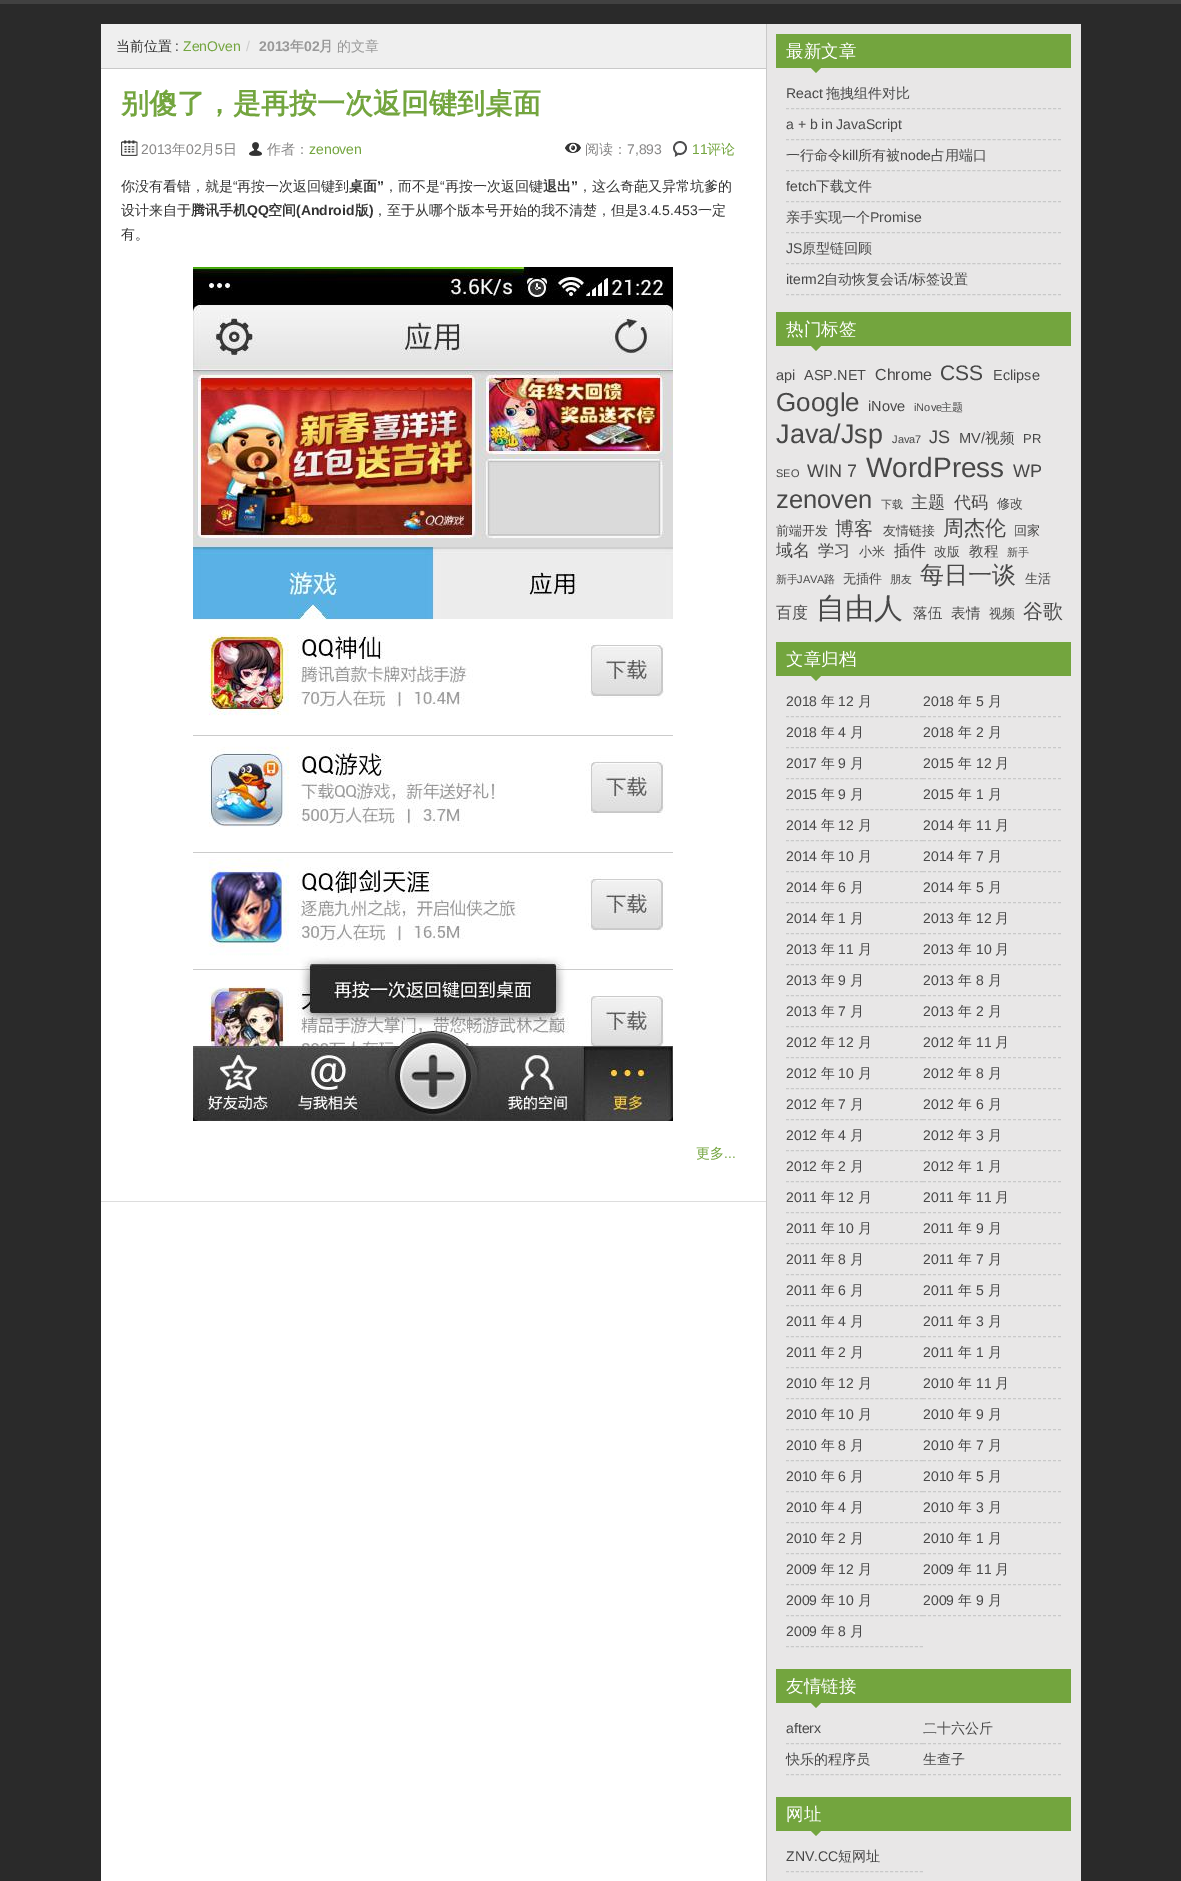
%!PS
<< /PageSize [1181 1881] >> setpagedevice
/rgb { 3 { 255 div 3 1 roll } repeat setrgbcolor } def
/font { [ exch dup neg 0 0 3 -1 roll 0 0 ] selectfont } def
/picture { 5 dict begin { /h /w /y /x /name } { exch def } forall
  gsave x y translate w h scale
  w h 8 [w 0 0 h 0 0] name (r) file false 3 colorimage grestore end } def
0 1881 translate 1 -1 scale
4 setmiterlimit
42 42 42 rgb
0 0 1181 1881 rectfill
[
  [0 0 1181 4 65 65 65]
  [767 24 314 1857 232 231 231]
  [101 69 665 1812 255 255 255]
  [766 24 1 1857 201 201 201]
  [101 24 665 44 239 239 239]
  [101 68 665 1 201 201 201]
  [101 1201 665 1 221 221 221]
] { aload pop rgb rectfill } forall
(img/1.rgb) 121 140 17 16 picture
(img/2.rgb) 249 142 13 14 picture
(img/3.rgb) 565 142 16 11 picture
(img/4.rgb) 673 141 14 16 picture
(img/5.rgb) 193 267 480 854 picture
115 165 62 rgb
776 34 295 34 rectfill
811 68 moveto 821 68 lineto 816 73 lineto closepath fill
201 201 201 rgb
[3 2.04] 0 setdash
786 108.5 moveto 1061 108.5 lineto stroke
786 139.5 moveto 1061 139.5 lineto stroke
786 170.5 moveto 1061 170.5 lineto stroke
786 201.5 moveto 1061 201.5 lineto stroke
786 232.5 moveto 1061 232.5 lineto stroke
786 263.5 moveto 1061 263.5 lineto stroke
786 294.5 moveto 1061 294.5 lineto stroke
115 165 62 rgb
776 312 295 34 rectfill
811 346 moveto 821 346 lineto 816 351 lineto closepath fill
776 642 295 34 rectfill
811 676 moveto 821 676 lineto 816 681 lineto closepath fill
201 201 201 rgb
[3 1.96] 0 setdash
786 716.5 moveto 923 716.5 lineto stroke
[3 2] 0 setdash
923 716.5 moveto 1061 716.5 lineto stroke
[3 1.96] 0 setdash
786 747.5 moveto 923 747.5 lineto stroke
[3 2] 0 setdash
923 747.5 moveto 1061 747.5 lineto stroke
[3 1.96] 0 setdash
786 778.5 moveto 923 778.5 lineto stroke
[3 2] 0 setdash
923 778.5 moveto 1061 778.5 lineto stroke
[3 1.96] 0 setdash
786 809.5 moveto 923 809.5 lineto stroke
[3 2] 0 setdash
923 809.5 moveto 1061 809.5 lineto stroke
[3 1.96] 0 setdash
786 840.5 moveto 923 840.5 lineto stroke
[3 2] 0 setdash
923 840.5 moveto 1061 840.5 lineto stroke
[3 1.96] 0 setdash
786 871.5 moveto 923 871.5 lineto stroke
[3 2] 0 setdash
923 871.5 moveto 1061 871.5 lineto stroke
[3 1.96] 0 setdash
786 902.5 moveto 923 902.5 lineto stroke
[3 2] 0 setdash
923 902.5 moveto 1061 902.5 lineto stroke
[3 1.96] 0 setdash
786 933.5 moveto 923 933.5 lineto stroke
[3 2] 0 setdash
923 933.5 moveto 1061 933.5 lineto stroke
[3 1.96] 0 setdash
786 964.5 moveto 923 964.5 lineto stroke
[3 2] 0 setdash
923 964.5 moveto 1061 964.5 lineto stroke
[3 1.96] 0 setdash
786 995.5 moveto 923 995.5 lineto stroke
[3 2] 0 setdash
923 995.5 moveto 1061 995.5 lineto stroke
[3 1.96] 0 setdash
786 1026.5 moveto 923 1026.5 lineto stroke
[3 2] 0 setdash
923 1026.5 moveto 1061 1026.5 lineto stroke
[3 1.96] 0 setdash
786 1057.5 moveto 923 1057.5 lineto stroke
[3 2] 0 setdash
923 1057.5 moveto 1061 1057.5 lineto stroke
[3 1.96] 0 setdash
786 1088.5 moveto 923 1088.5 lineto stroke
[3 2] 0 setdash
923 1088.5 moveto 1061 1088.5 lineto stroke
[3 1.96] 0 setdash
786 1119.5 moveto 923 1119.5 lineto stroke
[3 2] 0 setdash
923 1119.5 moveto 1061 1119.5 lineto stroke
[3 1.96] 0 setdash
786 1150.5 moveto 923 1150.5 lineto stroke
[3 2] 0 setdash
923 1150.5 moveto 1061 1150.5 lineto stroke
[3 1.96] 0 setdash
786 1181.5 moveto 923 1181.5 lineto stroke
[3 2] 0 setdash
923 1181.5 moveto 1061 1181.5 lineto stroke
[3 1.96] 0 setdash
786 1212.5 moveto 923 1212.5 lineto stroke
[3 2] 0 setdash
923 1212.5 moveto 1061 1212.5 lineto stroke
[3 1.96] 0 setdash
786 1243.5 moveto 923 1243.5 lineto stroke
[3 2] 0 setdash
923 1243.5 moveto 1061 1243.5 lineto stroke
[3 1.96] 0 setdash
786 1274.5 moveto 923 1274.5 lineto stroke
[3 2] 0 setdash
923 1274.5 moveto 1061 1274.5 lineto stroke
[3 1.96] 0 setdash
786 1305.5 moveto 923 1305.5 lineto stroke
[3 2] 0 setdash
923 1305.5 moveto 1061 1305.5 lineto stroke
[3 1.96] 0 setdash
786 1336.5 moveto 923 1336.5 lineto stroke
[3 2] 0 setdash
923 1336.5 moveto 1061 1336.5 lineto stroke
[3 1.96] 0 setdash
786 1367.5 moveto 923 1367.5 lineto stroke
[3 2] 0 setdash
923 1367.5 moveto 1061 1367.5 lineto stroke
[3 1.96] 0 setdash
786 1398.5 moveto 923 1398.5 lineto stroke
[3 2] 0 setdash
923 1398.5 moveto 1061 1398.5 lineto stroke
[3 1.96] 0 setdash
786 1429.5 moveto 923 1429.5 lineto stroke
[3 2] 0 setdash
923 1429.5 moveto 1061 1429.5 lineto stroke
[3 1.96] 0 setdash
786 1460.5 moveto 923 1460.5 lineto stroke
[3 2] 0 setdash
923 1460.5 moveto 1061 1460.5 lineto stroke
[3 1.96] 0 setdash
786 1491.5 moveto 923 1491.5 lineto stroke
[3 2] 0 setdash
923 1491.5 moveto 1061 1491.5 lineto stroke
[3 1.96] 0 setdash
786 1522.5 moveto 923 1522.5 lineto stroke
[3 2] 0 setdash
923 1522.5 moveto 1061 1522.5 lineto stroke
[3 1.96] 0 setdash
786 1553.5 moveto 923 1553.5 lineto stroke
[3 2] 0 setdash
923 1553.5 moveto 1061 1553.5 lineto stroke
[3 1.96] 0 setdash
786 1584.5 moveto 923 1584.5 lineto stroke
[3 2] 0 setdash
923 1584.5 moveto 1061 1584.5 lineto stroke
[3 1.96] 0 setdash
786 1615.5 moveto 923 1615.5 lineto stroke
[3 2] 0 setdash
923 1615.5 moveto 1061 1615.5 lineto stroke
[3 1.96] 0 setdash
786 1646.5 moveto 923 1646.5 lineto stroke
115 165 62 rgb
776 1669 295 34 rectfill
811 1703 moveto 821 1703 lineto 816 1708 lineto closepath fill
201 201 201 rgb
786 1743.5 moveto 923 1743.5 lineto stroke
[3 2] 0 setdash
923 1743.5 moveto 1061 1743.5 lineto stroke
[3 1.96] 0 setdash
786 1774.5 moveto 923 1774.5 lineto stroke
[3 2] 0 setdash
923 1774.5 moveto 1061 1774.5 lineto stroke
115 165 62 rgb
776 1797 295 34 rectfill
811 1831 moveto 821 1831 lineto 816 1836 lineto closepath fill
201 201 201 rgb
[3 1.96] 0 setdash
786 1871.5 moveto 923 1871.5 lineto stroke
/WenQuanYiZenHei-Medium 14 font
51 51 51 rgb
116 51 moveto (当前位置) show
/LiberationSans-Regular 14 font
175 51 moveto (:) show
115 165 62 rgb
183 51 moveto (ZenOven) show
204 204 204 rgb
246 51 moveto (/) show
/LiberationSans-Bold 14 font
153 153 153 rgb
259 51 moveto (2013) show
/WenQuanYiZenHei-Bold 14 font
290 51 moveto (年) show
/LiberationSans-Bold 14 font
304 51 moveto (02) show
/WenQuanYiZenHei-Bold 14 font
319 51 moveto (月) show
/WenQuanYiZenHei-Medium 14 font
337 51 moveto (的文章) show
/WenQuanYiZenHei-Bold 28 font
115 165 62 rgb
121 113 moveto (别傻了，是再按一次返回键到桌面) show
/LiberationSans-Regular 14 font
135 134 134 rgb
141 154 moveto (2013) show
/WenQuanYiZenHei-Medium 14 font
172 154 moveto (年) show
/LiberationSans-Regular 14 font
186 154 moveto (02) show
/WenQuanYiZenHei-Medium 14 font
201 154 moveto (月) show
/LiberationSans-Regular 14 font
215 154 moveto (5) show
/WenQuanYiZenHei-Medium 14 font
223 154 moveto (日) show
267 154 moveto (作者：) show
/LiberationSans-Regular 14 font
115 165 62 rgb
309 154 moveto (zenoven) show
/WenQuanYiZenHei-Medium 14 font
135 134 134 rgb
585 154 moveto (阅读：) show
/LiberationSans-Regular 14 font
627 154 moveto (7,893) show
115 165 62 rgb
692 154 moveto (11) show
/WenQuanYiZenHei-Medium 14 font
707 154 moveto (评论) show
51 51 51 rgb
121 191 moveto (你没有看错，就是) show
/LiberationSans-Regular 14 font
233 191 moveto (“) show
/WenQuanYiZenHei-Medium 14 font
237 191 moveto (再按一次返回键到) show
/WenQuanYiZenHei-Bold 14 font
349 191 moveto (桌面) show
/LiberationSans-Bold 14 font
377 191 moveto (”) show
/WenQuanYiZenHei-Medium 14 font
384 191 moveto (，而不是) show
/LiberationSans-Regular 14 font
440 191 moveto (“) show
/WenQuanYiZenHei-Medium 14 font
445 191 moveto (再按一次返回键) show
/WenQuanYiZenHei-Bold 14 font
543 191 moveto (退出) show
/LiberationSans-Bold 14 font
571 191 moveto (”) show
/WenQuanYiZenHei-Medium 14 font
578 191 moveto (，这么奇葩又异常坑爹的) show
121 215 moveto (设计来自于) show
/WenQuanYiZenHei-Bold 14 font
191 215 moveto (腾讯手机) show
/LiberationSans-Bold 14 font
247 215 moveto (QQ) show
/WenQuanYiZenHei-Bold 14 font
268 215 moveto (空间) show
/LiberationSans-Bold 14 font
296 215 moveto (\(Android) show
/WenQuanYiZenHei-Bold 14 font
355 215 moveto (版) show
/LiberationSans-Bold 14 font
369 215 moveto (\)) show
/WenQuanYiZenHei-Medium 14 font
373 215 moveto (，至于从哪个版本号开始的我不清楚，但是) show
/LiberationSans-Regular 14 font
639 215 moveto (3.4.5.453) show
/WenQuanYiZenHei-Medium 14 font
698 215 moveto (一定) show
121 239 moveto (有。) show
115 165 62 rgb
696 1158 moveto (更多) show
/LiberationSans-Regular 14 font
724 1158 moveto (...) show
/WenQuanYiZenHei-Medium 17.5 font
255 255 255 rgb
786 57 moveto (最新文章) show
/LiberationSans-Regular 14 font
72 72 72 rgb
786 98 moveto (React) show
/WenQuanYiZenHei-Medium 14 font
826 98 moveto (拖拽组件对比) show
/LiberationSans-Regular 14 font
786 129 moveto (a + b in JavaScript) show
/WenQuanYiZenHei-Medium 14 font
786 160 moveto (一行命令) show
/LiberationSans-Regular 14 font
842 160 moveto (kill) show
/WenQuanYiZenHei-Medium 14 font
858 160 moveto (所有被) show
/LiberationSans-Regular 14 font
900 160 moveto (node) show
/WenQuanYiZenHei-Medium 14 font
931 160 moveto (占用端口) show
/LiberationSans-Regular 14 font
786 191 moveto (fetch) show
/WenQuanYiZenHei-Medium 14 font
816 191 moveto (下载文件) show
786 222 moveto (亲手实现一个) show
/LiberationSans-Regular 14 font
870 222 moveto (Promise) show
786 253 moveto (JS) show
/WenQuanYiZenHei-Medium 14 font
802 253 moveto (原型链回顾) show
/LiberationSans-Regular 14 font
786 284 moveto (iterm2) show
/WenQuanYiZenHei-Medium 14 font
824 284 moveto (自动恢复会话) show
/LiberationSans-Regular 14 font
908 284 moveto (/) show
/WenQuanYiZenHei-Medium 14 font
912 284 moveto (标签设置) show
/WenQuanYiZenHei-Medium 17.5 font
255 255 255 rgb
786 335 moveto (热门标签) show
/LiberationSans-Regular 14.5 font
72 72 72 rgb
776 380 moveto (api) show
804 380 moveto (ASP.NET) show
/LiberationSans-Regular 16 font
875 380 moveto (Chrome) show
/LiberationSans-Regular 21 font
940 380 moveto (CSS) show
/LiberationSans-Regular 14.5 font
993 380 moveto (Eclipse) show
/LiberationSans-Regular 26 font
776 411 moveto (Google) show
/LiberationSans-Regular 14.5 font
868 411 moveto (iNove) show
/LiberationSans-Regular 11 font
914 411 moveto (iNove) show
/WenQuanYiZenHei-Medium 11 font
941 411 moveto (主题) show
/LiberationSans-Regular 27 font
776 443 moveto (Java/Jsp) show
/LiberationSans-Regular 11 font
892 443 moveto (Java7) show
/LiberationSans-Regular 18 font
929 443 moveto (JS) show
/LiberationSans-Regular 14.5 font
959 443 moveto (MV/) show
/WenQuanYiZenHei-Medium 14.5 font
985 443 moveto (视频) show
/LiberationSans-Regular 13 font
1023 443 moveto (PR) show
/LiberationSans-Regular 11 font
776 477 moveto (SEO) show
/LiberationSans-Regular 18 font
807 477 moveto (WIN 7) show
/LiberationSans-Regular 28 font
866 477 moveto (WordPress) show
/LiberationSans-Regular 18 font
1013 477 moveto (WP) show
/LiberationSans-Regular 25.5 font
776 508 moveto (zenoven) show
/WenQuanYiZenHei-Medium 11 font
881 508 moveto (下载) show
/WenQuanYiZenHei-Medium 17 font
911 508 moveto (主题) show
954 508 moveto (代码) show
/WenQuanYiZenHei-Medium 13 font
997 508 moveto (修改) show
776 535 moveto (前端开发) show
/WenQuanYiZenHei-Medium 19 font
835 535 moveto (博客) show
/WenQuanYiZenHei-Medium 13 font
883 535 moveto (友情链接) show
/WenQuanYiZenHei-Medium 21 font
943 535 moveto (周杰伦) show
/WenQuanYiZenHei-Medium 13 font
1014 535 moveto (回家) show
/WenQuanYiZenHei-Medium 17 font
776 556 moveto (域名) show
/WenQuanYiZenHei-Medium 16 font
818 556 moveto (学习) show
/WenQuanYiZenHei-Medium 13 font
859 556 moveto (小米) show
/WenQuanYiZenHei-Medium 16 font
894 556 moveto (插件) show
/WenQuanYiZenHei-Medium 13 font
934 556 moveto (改版) show
/WenQuanYiZenHei-Medium 14.5 font
969 556 moveto (教程) show
/WenQuanYiZenHei-Medium 11 font
1007 556 moveto (新手) show
776 583 moveto (新手) show
/LiberationSans-Regular 11 font
797 583 moveto (JAVA) show
/WenQuanYiZenHei-Medium 11 font
824 583 moveto (路) show
/WenQuanYiZenHei-Medium 13 font
843 583 moveto (无插件) show
/WenQuanYiZenHei-Medium 11 font
890 583 moveto (朋友) show
/WenQuanYiZenHei-Medium 24 font
920 583 moveto (每日一谈) show
/WenQuanYiZenHei-Medium 13 font
1025 583 moveto (生活) show
/WenQuanYiZenHei-Medium 16 font
776 618 moveto (百度) show
/WenQuanYiZenHei-Medium 29 font
816 618 moveto (自由人) show
/WenQuanYiZenHei-Medium 14.5 font
913 618 moveto (落伍) show
951 618 moveto (表情) show
/WenQuanYiZenHei-Medium 13 font
989 618 moveto (视频) show
/WenQuanYiZenHei-Medium 20 font
1023 618 moveto (谷歌) show
/WenQuanYiZenHei-Medium 17.5 font
255 255 255 rgb
786 665 moveto (文章归档) show
/LiberationSans-Regular 14 font
72 72 72 rgb
786 706 moveto (2018) show
/WenQuanYiZenHei-Medium 14 font
821 706 moveto (年) show
/LiberationSans-Regular 14 font
838 706 moveto (12) show
/WenQuanYiZenHei-Medium 14 font
858 706 moveto (月) show
/LiberationSans-Regular 14 font
923 706 moveto (2018) show
/WenQuanYiZenHei-Medium 14 font
958 706 moveto (年) show
/LiberationSans-Regular 14 font
976 706 moveto (5) show
/WenQuanYiZenHei-Medium 14 font
988 706 moveto (月) show
/LiberationSans-Regular 14 font
786 737 moveto (2018) show
/WenQuanYiZenHei-Medium 14 font
821 737 moveto (年) show
/LiberationSans-Regular 14 font
838 737 moveto (4) show
/WenQuanYiZenHei-Medium 14 font
850 737 moveto (月) show
/LiberationSans-Regular 14 font
923 737 moveto (2018) show
/WenQuanYiZenHei-Medium 14 font
958 737 moveto (年) show
/LiberationSans-Regular 14 font
976 737 moveto (2) show
/WenQuanYiZenHei-Medium 14 font
988 737 moveto (月) show
/LiberationSans-Regular 14 font
786 768 moveto (2017) show
/WenQuanYiZenHei-Medium 14 font
821 768 moveto (年) show
/LiberationSans-Regular 14 font
838 768 moveto (9) show
/WenQuanYiZenHei-Medium 14 font
850 768 moveto (月) show
/LiberationSans-Regular 14 font
923 768 moveto (2015) show
/WenQuanYiZenHei-Medium 14 font
958 768 moveto (年) show
/LiberationSans-Regular 14 font
976 768 moveto (12) show
/WenQuanYiZenHei-Medium 14 font
995 768 moveto (月) show
/LiberationSans-Regular 14 font
786 799 moveto (2015) show
/WenQuanYiZenHei-Medium 14 font
821 799 moveto (年) show
/LiberationSans-Regular 14 font
838 799 moveto (9) show
/WenQuanYiZenHei-Medium 14 font
850 799 moveto (月) show
/LiberationSans-Regular 14 font
923 799 moveto (2015) show
/WenQuanYiZenHei-Medium 14 font
958 799 moveto (年) show
/LiberationSans-Regular 14 font
976 799 moveto (1) show
/WenQuanYiZenHei-Medium 14 font
988 799 moveto (月) show
/LiberationSans-Regular 14 font
786 830 moveto (2014) show
/WenQuanYiZenHei-Medium 14 font
821 830 moveto (年) show
/LiberationSans-Regular 14 font
838 830 moveto (12) show
/WenQuanYiZenHei-Medium 14 font
858 830 moveto (月) show
/LiberationSans-Regular 14 font
923 830 moveto (2014) show
/WenQuanYiZenHei-Medium 14 font
958 830 moveto (年) show
/LiberationSans-Regular 14 font
976 830 moveto (11) show
/WenQuanYiZenHei-Medium 14 font
995 830 moveto (月) show
/LiberationSans-Regular 14 font
786 861 moveto (2014) show
/WenQuanYiZenHei-Medium 14 font
821 861 moveto (年) show
/LiberationSans-Regular 14 font
838 861 moveto (10) show
/WenQuanYiZenHei-Medium 14 font
858 861 moveto (月) show
/LiberationSans-Regular 14 font
923 861 moveto (2014) show
/WenQuanYiZenHei-Medium 14 font
958 861 moveto (年) show
/LiberationSans-Regular 14 font
976 861 moveto (7) show
/WenQuanYiZenHei-Medium 14 font
988 861 moveto (月) show
/LiberationSans-Regular 14 font
786 892 moveto (2014) show
/WenQuanYiZenHei-Medium 14 font
821 892 moveto (年) show
/LiberationSans-Regular 14 font
838 892 moveto (6) show
/WenQuanYiZenHei-Medium 14 font
850 892 moveto (月) show
/LiberationSans-Regular 14 font
923 892 moveto (2014) show
/WenQuanYiZenHei-Medium 14 font
958 892 moveto (年) show
/LiberationSans-Regular 14 font
976 892 moveto (5) show
/WenQuanYiZenHei-Medium 14 font
988 892 moveto (月) show
/LiberationSans-Regular 14 font
786 923 moveto (2014) show
/WenQuanYiZenHei-Medium 14 font
821 923 moveto (年) show
/LiberationSans-Regular 14 font
838 923 moveto (1) show
/WenQuanYiZenHei-Medium 14 font
850 923 moveto (月) show
/LiberationSans-Regular 14 font
923 923 moveto (2013) show
/WenQuanYiZenHei-Medium 14 font
958 923 moveto (年) show
/LiberationSans-Regular 14 font
976 923 moveto (12) show
/WenQuanYiZenHei-Medium 14 font
995 923 moveto (月) show
/LiberationSans-Regular 14 font
786 954 moveto (2013) show
/WenQuanYiZenHei-Medium 14 font
821 954 moveto (年) show
/LiberationSans-Regular 14 font
838 954 moveto (11) show
/WenQuanYiZenHei-Medium 14 font
858 954 moveto (月) show
/LiberationSans-Regular 14 font
923 954 moveto (2013) show
/WenQuanYiZenHei-Medium 14 font
958 954 moveto (年) show
/LiberationSans-Regular 14 font
976 954 moveto (10) show
/WenQuanYiZenHei-Medium 14 font
995 954 moveto (月) show
/LiberationSans-Regular 14 font
786 985 moveto (2013) show
/WenQuanYiZenHei-Medium 14 font
821 985 moveto (年) show
/LiberationSans-Regular 14 font
838 985 moveto (9) show
/WenQuanYiZenHei-Medium 14 font
850 985 moveto (月) show
/LiberationSans-Regular 14 font
923 985 moveto (2013) show
/WenQuanYiZenHei-Medium 14 font
958 985 moveto (年) show
/LiberationSans-Regular 14 font
976 985 moveto (8) show
/WenQuanYiZenHei-Medium 14 font
988 985 moveto (月) show
/LiberationSans-Regular 14 font
786 1016 moveto (2013) show
/WenQuanYiZenHei-Medium 14 font
821 1016 moveto (年) show
/LiberationSans-Regular 14 font
838 1016 moveto (7) show
/WenQuanYiZenHei-Medium 14 font
850 1016 moveto (月) show
/LiberationSans-Regular 14 font
923 1016 moveto (2013) show
/WenQuanYiZenHei-Medium 14 font
958 1016 moveto (年) show
/LiberationSans-Regular 14 font
976 1016 moveto (2) show
/WenQuanYiZenHei-Medium 14 font
988 1016 moveto (月) show
/LiberationSans-Regular 14 font
786 1047 moveto (2012) show
/WenQuanYiZenHei-Medium 14 font
821 1047 moveto (年) show
/LiberationSans-Regular 14 font
838 1047 moveto (12) show
/WenQuanYiZenHei-Medium 14 font
858 1047 moveto (月) show
/LiberationSans-Regular 14 font
923 1047 moveto (2012) show
/WenQuanYiZenHei-Medium 14 font
958 1047 moveto (年) show
/LiberationSans-Regular 14 font
976 1047 moveto (11) show
/WenQuanYiZenHei-Medium 14 font
995 1047 moveto (月) show
/LiberationSans-Regular 14 font
786 1078 moveto (2012) show
/WenQuanYiZenHei-Medium 14 font
821 1078 moveto (年) show
/LiberationSans-Regular 14 font
838 1078 moveto (10) show
/WenQuanYiZenHei-Medium 14 font
858 1078 moveto (月) show
/LiberationSans-Regular 14 font
923 1078 moveto (2012) show
/WenQuanYiZenHei-Medium 14 font
958 1078 moveto (年) show
/LiberationSans-Regular 14 font
976 1078 moveto (8) show
/WenQuanYiZenHei-Medium 14 font
988 1078 moveto (月) show
/LiberationSans-Regular 14 font
786 1109 moveto (2012) show
/WenQuanYiZenHei-Medium 14 font
821 1109 moveto (年) show
/LiberationSans-Regular 14 font
838 1109 moveto (7) show
/WenQuanYiZenHei-Medium 14 font
850 1109 moveto (月) show
/LiberationSans-Regular 14 font
923 1109 moveto (2012) show
/WenQuanYiZenHei-Medium 14 font
958 1109 moveto (年) show
/LiberationSans-Regular 14 font
976 1109 moveto (6) show
/WenQuanYiZenHei-Medium 14 font
988 1109 moveto (月) show
/LiberationSans-Regular 14 font
786 1140 moveto (2012) show
/WenQuanYiZenHei-Medium 14 font
821 1140 moveto (年) show
/LiberationSans-Regular 14 font
838 1140 moveto (4) show
/WenQuanYiZenHei-Medium 14 font
850 1140 moveto (月) show
/LiberationSans-Regular 14 font
923 1140 moveto (2012) show
/WenQuanYiZenHei-Medium 14 font
958 1140 moveto (年) show
/LiberationSans-Regular 14 font
976 1140 moveto (3) show
/WenQuanYiZenHei-Medium 14 font
988 1140 moveto (月) show
/LiberationSans-Regular 14 font
786 1171 moveto (2012) show
/WenQuanYiZenHei-Medium 14 font
821 1171 moveto (年) show
/LiberationSans-Regular 14 font
838 1171 moveto (2) show
/WenQuanYiZenHei-Medium 14 font
850 1171 moveto (月) show
/LiberationSans-Regular 14 font
923 1171 moveto (2012) show
/WenQuanYiZenHei-Medium 14 font
958 1171 moveto (年) show
/LiberationSans-Regular 14 font
976 1171 moveto (1) show
/WenQuanYiZenHei-Medium 14 font
988 1171 moveto (月) show
/LiberationSans-Regular 14 font
786 1202 moveto (2011) show
/WenQuanYiZenHei-Medium 14 font
821 1202 moveto (年) show
/LiberationSans-Regular 14 font
838 1202 moveto (12) show
/WenQuanYiZenHei-Medium 14 font
858 1202 moveto (月) show
/LiberationSans-Regular 14 font
923 1202 moveto (2011) show
/WenQuanYiZenHei-Medium 14 font
958 1202 moveto (年) show
/LiberationSans-Regular 14 font
976 1202 moveto (11) show
/WenQuanYiZenHei-Medium 14 font
995 1202 moveto (月) show
/LiberationSans-Regular 14 font
786 1233 moveto (2011) show
/WenQuanYiZenHei-Medium 14 font
821 1233 moveto (年) show
/LiberationSans-Regular 14 font
838 1233 moveto (10) show
/WenQuanYiZenHei-Medium 14 font
858 1233 moveto (月) show
/LiberationSans-Regular 14 font
923 1233 moveto (2011) show
/WenQuanYiZenHei-Medium 14 font
958 1233 moveto (年) show
/LiberationSans-Regular 14 font
976 1233 moveto (9) show
/WenQuanYiZenHei-Medium 14 font
988 1233 moveto (月) show
/LiberationSans-Regular 14 font
786 1264 moveto (2011) show
/WenQuanYiZenHei-Medium 14 font
821 1264 moveto (年) show
/LiberationSans-Regular 14 font
838 1264 moveto (8) show
/WenQuanYiZenHei-Medium 14 font
850 1264 moveto (月) show
/LiberationSans-Regular 14 font
923 1264 moveto (2011) show
/WenQuanYiZenHei-Medium 14 font
958 1264 moveto (年) show
/LiberationSans-Regular 14 font
976 1264 moveto (7) show
/WenQuanYiZenHei-Medium 14 font
988 1264 moveto (月) show
/LiberationSans-Regular 14 font
786 1295 moveto (2011) show
/WenQuanYiZenHei-Medium 14 font
821 1295 moveto (年) show
/LiberationSans-Regular 14 font
838 1295 moveto (6) show
/WenQuanYiZenHei-Medium 14 font
850 1295 moveto (月) show
/LiberationSans-Regular 14 font
923 1295 moveto (2011) show
/WenQuanYiZenHei-Medium 14 font
958 1295 moveto (年) show
/LiberationSans-Regular 14 font
976 1295 moveto (5) show
/WenQuanYiZenHei-Medium 14 font
988 1295 moveto (月) show
/LiberationSans-Regular 14 font
786 1326 moveto (2011) show
/WenQuanYiZenHei-Medium 14 font
821 1326 moveto (年) show
/LiberationSans-Regular 14 font
838 1326 moveto (4) show
/WenQuanYiZenHei-Medium 14 font
850 1326 moveto (月) show
/LiberationSans-Regular 14 font
923 1326 moveto (2011) show
/WenQuanYiZenHei-Medium 14 font
958 1326 moveto (年) show
/LiberationSans-Regular 14 font
976 1326 moveto (3) show
/WenQuanYiZenHei-Medium 14 font
988 1326 moveto (月) show
/LiberationSans-Regular 14 font
786 1357 moveto (2011) show
/WenQuanYiZenHei-Medium 14 font
821 1357 moveto (年) show
/LiberationSans-Regular 14 font
838 1357 moveto (2) show
/WenQuanYiZenHei-Medium 14 font
850 1357 moveto (月) show
/LiberationSans-Regular 14 font
923 1357 moveto (2011) show
/WenQuanYiZenHei-Medium 14 font
958 1357 moveto (年) show
/LiberationSans-Regular 14 font
976 1357 moveto (1) show
/WenQuanYiZenHei-Medium 14 font
988 1357 moveto (月) show
/LiberationSans-Regular 14 font
786 1388 moveto (2010) show
/WenQuanYiZenHei-Medium 14 font
821 1388 moveto (年) show
/LiberationSans-Regular 14 font
838 1388 moveto (12) show
/WenQuanYiZenHei-Medium 14 font
858 1388 moveto (月) show
/LiberationSans-Regular 14 font
923 1388 moveto (2010) show
/WenQuanYiZenHei-Medium 14 font
958 1388 moveto (年) show
/LiberationSans-Regular 14 font
976 1388 moveto (11) show
/WenQuanYiZenHei-Medium 14 font
995 1388 moveto (月) show
/LiberationSans-Regular 14 font
786 1419 moveto (2010) show
/WenQuanYiZenHei-Medium 14 font
821 1419 moveto (年) show
/LiberationSans-Regular 14 font
838 1419 moveto (10) show
/WenQuanYiZenHei-Medium 14 font
858 1419 moveto (月) show
/LiberationSans-Regular 14 font
923 1419 moveto (2010) show
/WenQuanYiZenHei-Medium 14 font
958 1419 moveto (年) show
/LiberationSans-Regular 14 font
976 1419 moveto (9) show
/WenQuanYiZenHei-Medium 14 font
988 1419 moveto (月) show
/LiberationSans-Regular 14 font
786 1450 moveto (2010) show
/WenQuanYiZenHei-Medium 14 font
821 1450 moveto (年) show
/LiberationSans-Regular 14 font
838 1450 moveto (8) show
/WenQuanYiZenHei-Medium 14 font
850 1450 moveto (月) show
/LiberationSans-Regular 14 font
923 1450 moveto (2010) show
/WenQuanYiZenHei-Medium 14 font
958 1450 moveto (年) show
/LiberationSans-Regular 14 font
976 1450 moveto (7) show
/WenQuanYiZenHei-Medium 14 font
988 1450 moveto (月) show
/LiberationSans-Regular 14 font
786 1481 moveto (2010) show
/WenQuanYiZenHei-Medium 14 font
821 1481 moveto (年) show
/LiberationSans-Regular 14 font
838 1481 moveto (6) show
/WenQuanYiZenHei-Medium 14 font
850 1481 moveto (月) show
/LiberationSans-Regular 14 font
923 1481 moveto (2010) show
/WenQuanYiZenHei-Medium 14 font
958 1481 moveto (年) show
/LiberationSans-Regular 14 font
976 1481 moveto (5) show
/WenQuanYiZenHei-Medium 14 font
988 1481 moveto (月) show
/LiberationSans-Regular 14 font
786 1512 moveto (2010) show
/WenQuanYiZenHei-Medium 14 font
821 1512 moveto (年) show
/LiberationSans-Regular 14 font
838 1512 moveto (4) show
/WenQuanYiZenHei-Medium 14 font
850 1512 moveto (月) show
/LiberationSans-Regular 14 font
923 1512 moveto (2010) show
/WenQuanYiZenHei-Medium 14 font
958 1512 moveto (年) show
/LiberationSans-Regular 14 font
976 1512 moveto (3) show
/WenQuanYiZenHei-Medium 14 font
988 1512 moveto (月) show
/LiberationSans-Regular 14 font
786 1543 moveto (2010) show
/WenQuanYiZenHei-Medium 14 font
821 1543 moveto (年) show
/LiberationSans-Regular 14 font
838 1543 moveto (2) show
/WenQuanYiZenHei-Medium 14 font
850 1543 moveto (月) show
/LiberationSans-Regular 14 font
923 1543 moveto (2010) show
/WenQuanYiZenHei-Medium 14 font
958 1543 moveto (年) show
/LiberationSans-Regular 14 font
976 1543 moveto (1) show
/WenQuanYiZenHei-Medium 14 font
988 1543 moveto (月) show
/LiberationSans-Regular 14 font
786 1574 moveto (2009) show
/WenQuanYiZenHei-Medium 14 font
821 1574 moveto (年) show
/LiberationSans-Regular 14 font
838 1574 moveto (12) show
/WenQuanYiZenHei-Medium 14 font
858 1574 moveto (月) show
/LiberationSans-Regular 14 font
923 1574 moveto (2009) show
/WenQuanYiZenHei-Medium 14 font
958 1574 moveto (年) show
/LiberationSans-Regular 14 font
976 1574 moveto (11) show
/WenQuanYiZenHei-Medium 14 font
995 1574 moveto (月) show
/LiberationSans-Regular 14 font
786 1605 moveto (2009) show
/WenQuanYiZenHei-Medium 14 font
821 1605 moveto (年) show
/LiberationSans-Regular 14 font
838 1605 moveto (10) show
/WenQuanYiZenHei-Medium 14 font
858 1605 moveto (月) show
/LiberationSans-Regular 14 font
923 1605 moveto (2009) show
/WenQuanYiZenHei-Medium 14 font
958 1605 moveto (年) show
/LiberationSans-Regular 14 font
976 1605 moveto (9) show
/WenQuanYiZenHei-Medium 14 font
988 1605 moveto (月) show
/LiberationSans-Regular 14 font
786 1636 moveto (2009) show
/WenQuanYiZenHei-Medium 14 font
821 1636 moveto (年) show
/LiberationSans-Regular 14 font
838 1636 moveto (8) show
/WenQuanYiZenHei-Medium 14 font
850 1636 moveto (月) show
/WenQuanYiZenHei-Medium 17.5 font
255 255 255 rgb
786 1692 moveto (友情链接) show
/LiberationSans-Regular 14 font
72 72 72 rgb
786 1733 moveto (afterx) show
/WenQuanYiZenHei-Medium 14 font
[
  [(二十六公斤) 923 1733]
  [(快乐的程序员) 786 1764]
  [(生查子) 923 1764]
] { aload pop moveto show } forall
/WenQuanYiZenHei-Medium 17.5 font
255 255 255 rgb
786 1820 moveto (网址) show
/LiberationSans-Regular 14 font
72 72 72 rgb
786 1861 moveto (ZNV.CC) show
/WenQuanYiZenHei-Medium 14 font
838 1861 moveto (短网址) show
showpage
